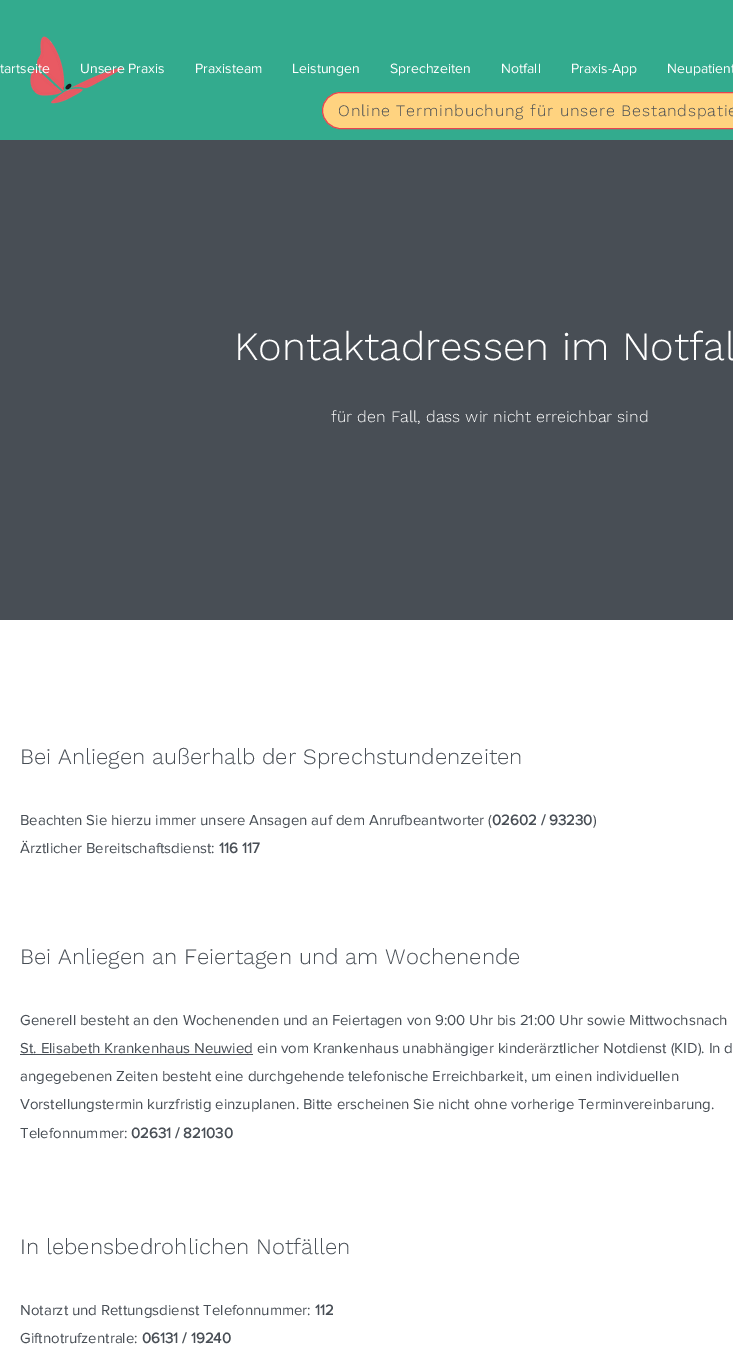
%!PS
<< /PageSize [733 1348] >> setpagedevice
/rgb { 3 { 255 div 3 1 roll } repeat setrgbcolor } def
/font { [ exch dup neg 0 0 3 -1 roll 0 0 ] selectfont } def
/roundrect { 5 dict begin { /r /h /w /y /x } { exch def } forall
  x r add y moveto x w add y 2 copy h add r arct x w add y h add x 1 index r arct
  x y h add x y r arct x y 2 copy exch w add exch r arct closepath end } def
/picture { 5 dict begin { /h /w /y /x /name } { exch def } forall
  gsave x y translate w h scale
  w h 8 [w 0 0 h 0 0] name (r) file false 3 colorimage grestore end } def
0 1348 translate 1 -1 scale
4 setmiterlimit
255 255 255 rgb
0 0 733 1348 rectfill
51 171 142 rgb
0 0 733 140 rectfill
(img/1.rgb) 30 36 93 68 picture
255 211 128 rgb
322.5 92.5 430 36 18 roundrect gsave fill grestore
234 66 80 rgb
stroke
72 78 85 rgb
0 140 733 480 rectfill
20 1054 233 1 rectfill
/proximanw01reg-Regular 14 font
255 255 255 rgb
[
  [(tartseite) 0 73]
  [(Unsere Praxis) 80 73]
  [(Praxisteam) 195 73]
  [(Leistungen) 292 73]
  [(Sprechzeiten) 390 73]
  [(Notfall) 501 73]
  [(Praxis-App) 571 73]
  [(Neupatient) 667 73]
] { aload pop moveto show } forall
/WorkSans-Light 16 font
72 78 85 rgb
338 116 moveto 0.8 0 (Online Terminbuchung für unsere Bestandspatie) ashow
/WorkSans-Light 40 font
255 255 255 rgb
234 360 moveto (Kontaktadressen im Notfal) show
/WorkSans-Light 16 font
331 422 moveto (für den Fall, dass wir nicht erreichbar sind) show
/WorkSans-Light 22 font
72 78 85 rgb
20 764 moveto (Bei Anliegen außerhalb der Sprechstundenzeiten) show
/proximanw01reg-Regular 15 font
20 825 moveto (Beachten Sie hierzu immer unsere Ansagen auf dem Anrufbeantworter \() show
/proximanw01reg-Bold 15 font
492 825 moveto (02602 / 93230) show
/proximanw01reg-Regular 15 font
593 825 moveto (\)) show
20 853 moveto (Ärztlicher Bereitschaftsdienst:) show
/proximanw01reg-Bold 15 font
219 853 moveto (116 117) show
/WorkSans-Light 22 font
20 964 moveto (Bei Anliegen an Feiertagen und am Wochenende) show
/proximanw01reg-Regular 15 font
[
  [(Generell besteht an den Wochenenden und an Feiertagen von 9:00 Uhr bis 21:00 Uhr sowie Mittwochsnach) 20 1025]
  [(St. Elisabeth Krankenhaus Neuwied ein vom Krankenhaus unabhängiger kinderärztlicher Notdienst \(KID\). In d) 20 1053]
  [(angegebenen Zeiten besteht eine durchgehende telefonische Erreichbarkeit, um einen individuellen) 20 1081]
  [(Vorstellungstermin kurzfristig einzuplanen. Bitte erscheinen Sie nicht ohne vorherige Terminvereinbarung.) 20 1109]
  [(Telefonnummer:) 20 1138]
] { aload pop moveto show } forall
/proximanw01reg-Bold 15 font
131 1138 moveto (02631 / 821030) show
/WorkSans-Light 22 font
20 1254 moveto (In lebensbedrohlichen Notfällen) show
/proximanw01reg-Regular 15 font
20 1315 moveto (Notarzt und Rettungsdienst Telefonnummer:) show
/proximanw01reg-Bold 15 font
315 1315 moveto (112) show
/proximanw01reg-Regular 15 font
20 1343 moveto (Giftnotrufzentrale:) show
/proximanw01reg-Bold 15 font
142 1343 moveto (06131 / 19240) show
showpage
